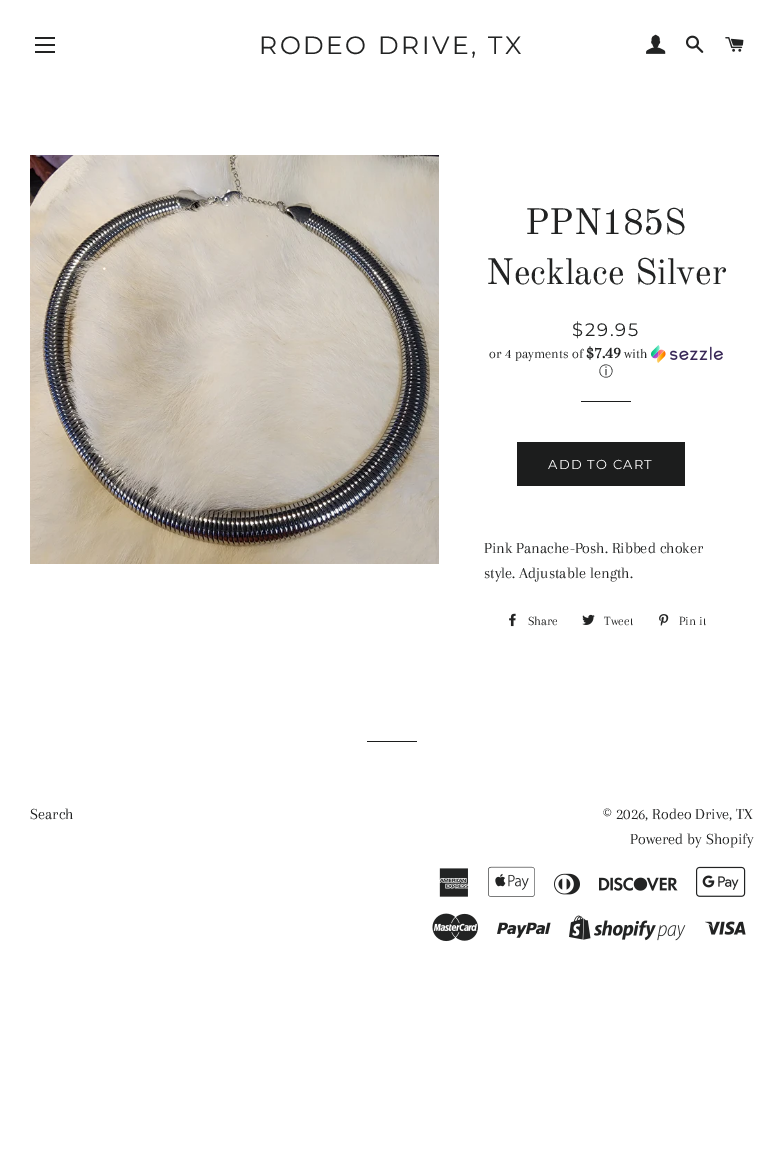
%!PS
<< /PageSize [783 1169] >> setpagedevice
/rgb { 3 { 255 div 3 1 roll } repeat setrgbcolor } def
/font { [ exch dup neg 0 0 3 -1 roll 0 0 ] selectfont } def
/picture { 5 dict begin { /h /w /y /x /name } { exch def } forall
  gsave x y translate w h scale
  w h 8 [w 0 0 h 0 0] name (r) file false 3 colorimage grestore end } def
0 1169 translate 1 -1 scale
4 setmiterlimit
255 255 255 rgb
0 0 783 1169 rectfill
[
  [35 37 20 2 34 35 35]
  [35 44 20 2 34 35 35]
  [35 51 20 2 34 35 35]
] { aload pop rgb rectfill } forall
(img/1.rgb) 646 34 20 20 picture
(img/2.rgb) 686 35 18 18 picture
(img/3.rgb) 725 37 19 15 picture
(img/4.rgb) 30 155 409 409 picture
(img/5.rgb) 651 345 72 18 picture
28 29 29 rgb
581 401 50 1 rectfill
517 442 168 44 rectfill
(img/6.rgb) 509 613 7 14 picture
(img/7.rgb) 582 614 13 11 picture
(img/8.rgb) 659 614 10 12 picture
367 741 50 1 rectfill
(img/9.rgb) 439 868 30 29 picture
(img/10.rgb) 488 866 47 31 picture
(img/11.rgb) 554 873 26 22 picture
(img/12.rgb) 599 877 79 14 picture
(img/13.rgb) 696 866 50 31 picture
(img/14.rgb) 432 913 46 29 picture
(img/15.rgb) 497 922 54 16 picture
(img/16.rgb) 569 915 117 26 picture
(img/17.rgb) 705 921 41 14 picture
/Montserrat-Thin 25 font
34 35 35 rgb
259 54 moveto 2.5 0 (RODEO DRIVE, TX) ashow
/OldStandardTT-Regular 36 font
525 234 moveto (PPN185S) show
486 284 moveto (Necklace Silver) show
/Montserrat-Thin 18 font
572 336 moveto 1.75 0 ($29.95) ashow
/Arapey-Regular 14 font
489 358 moveto (or 4 payments of) show
/Arapey-Bold 17 font
586 358 moveto ($7.49) show
/Arapey-Regular 14 font
624 358 moveto (with) show
/WenQuanYiZenHei-Medium 14 font
599 376 moveto (ⓘ) show
/Montserrat-Thin 13 font
255 255 255 rgb
548 469 moveto 1.25 0 (ADD TO CART) ashow
/Arapey-Regular 16 font
34 35 35 rgb
484 553 moveto (Pink Panache-Posh. Ribbed choker) show
484 578 moveto (style. Adjustable length.) show
/Arapey-Regular 13 font
[
  [(Share) 528 625]
  [(Tweet) 604 625]
  [(Pin it) 679 625]
] { aload pop moveto show } forall
/Arapey-Regular 16 font
[
  [(Search) 30 819]
  [(© 2026, Rodeo Drive, TX) 603 819]
  [(Powered by Shopify) 630 844]
] { aload pop moveto show } forall
showpage
